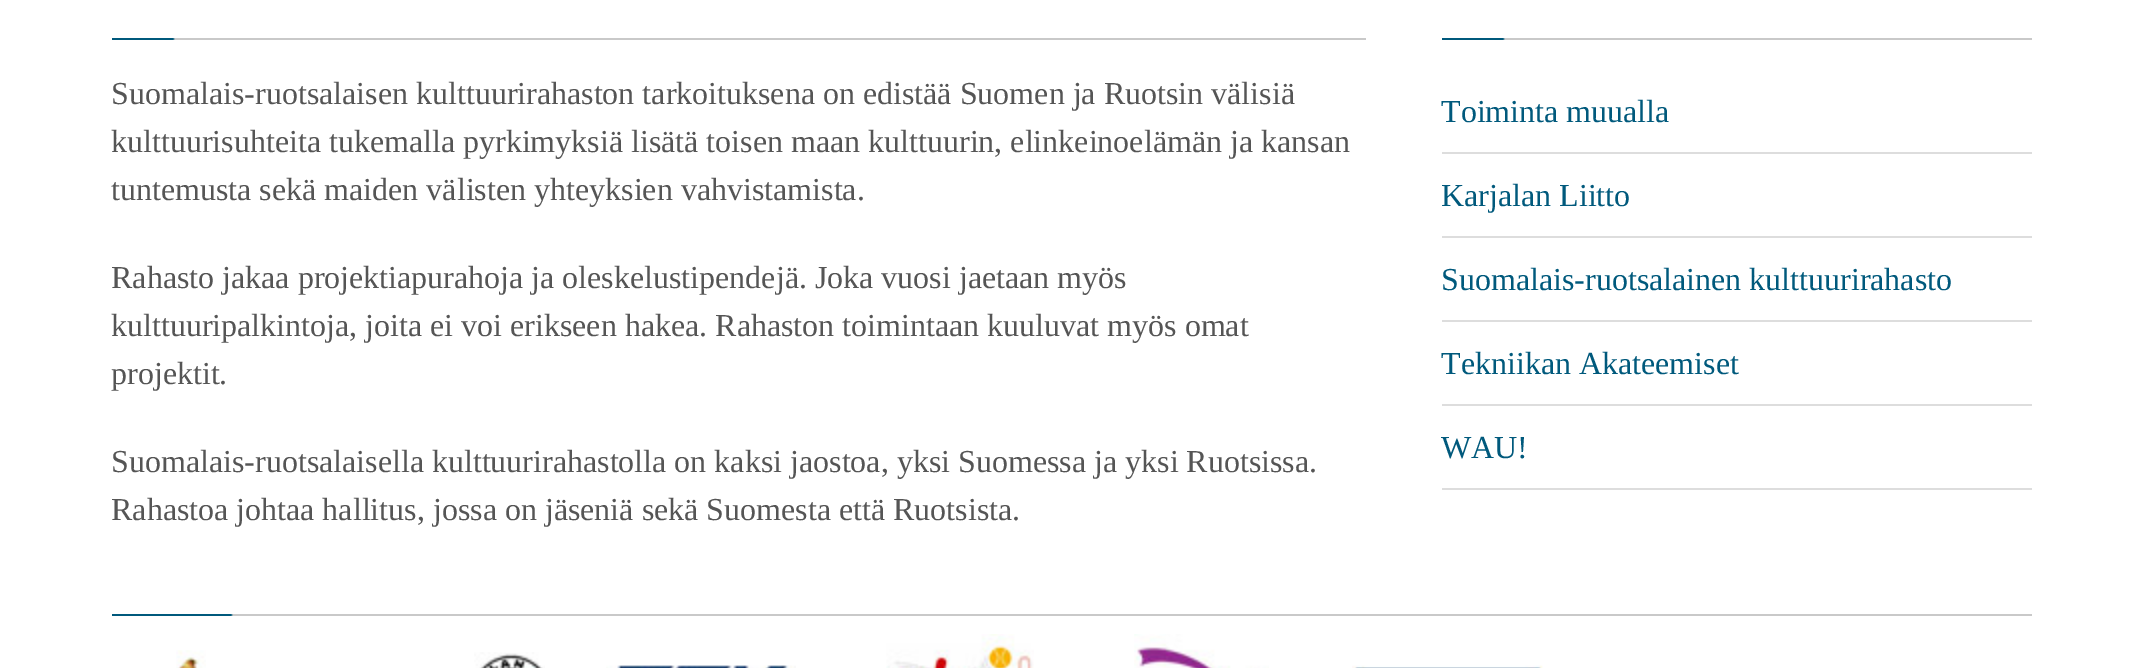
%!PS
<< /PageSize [2142 668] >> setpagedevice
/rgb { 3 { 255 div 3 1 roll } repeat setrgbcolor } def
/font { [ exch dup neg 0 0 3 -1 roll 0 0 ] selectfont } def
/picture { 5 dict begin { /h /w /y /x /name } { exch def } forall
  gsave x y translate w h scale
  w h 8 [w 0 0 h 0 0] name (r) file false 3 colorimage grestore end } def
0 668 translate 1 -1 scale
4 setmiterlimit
255 255 255 rgb
0 0 2142 668 rectfill
(img/1.rgb) 112 38 1254 2 picture
(img/2.rgb) 1442 38 590 2 picture
[
  [1442 152 590 2 221 221 221]
  [1442 236 590 2 221 221 221]
  [1442 320 590 2 221 221 221]
  [1442 404 590 2 221 221 221]
  [1442 488 590 2 221 221 221]
] { aload pop rgb rectfill } forall
(img/3.rgb) 112 614 1920 2 picture
(img/4.rgb) 176 650 30 18 picture
(img/5.rgb) 474 652 71 16 picture
(img/6.rgb) 606 665 190 3 picture
(img/7.rgb) 886 634 148 34 picture
(img/8.rgb) 1134 634 135 34 picture
(img/9.rgb) 1352 665 191 3 picture
/LiberationSerif-Regular 32 font
85 85 85 rgb
[
  [(Suomalais-ruotsalaisen kulttuurirahaston tarkoituksena on edistää Suomen ja Ruotsin välisiä) 111 104]
  [(kulttuurisuhteita tukemalla pyrkimyksiä lisätä toisen maan kulttuurin, elinkeinoelämän ja kansan) 111 152]
  [(tuntemusta sekä maiden välisten yhteyksien vahvistamista.) 111 200]
  [(Rahasto jakaa projektiapurahoja ja oleskelustipendejä. Joka vuosi jaetaan myös) 111 288]
  [(kulttuuripalkintoja, joita ei voi erikseen hakea. Rahaston toimintaan kuuluvat myös omat) 111 336]
  [(projektit.) 111 384]
  [(Suomalais-ruotsalaisella kulttuurirahastolla on kaksi jaostoa, yksi Suomessa ja yksi Ruotsissa.) 111 472]
  [(Rahastoa johtaa hallitus, jossa on jäseniä sekä Suomesta että Ruotsista.) 111 520]
] { aload pop moveto show } forall
0 89 124 rgb
[
  [(Toiminta muualla) 1441 122]
  [(Karjalan Liitto) 1441 206]
  [(Suomalais-ruotsalainen kulttuurirahasto) 1441 290]
  [(Tekniikan Akateemiset) 1441 374]
  [(WAU!) 1441 458]
] { aload pop moveto show } forall
showpage
